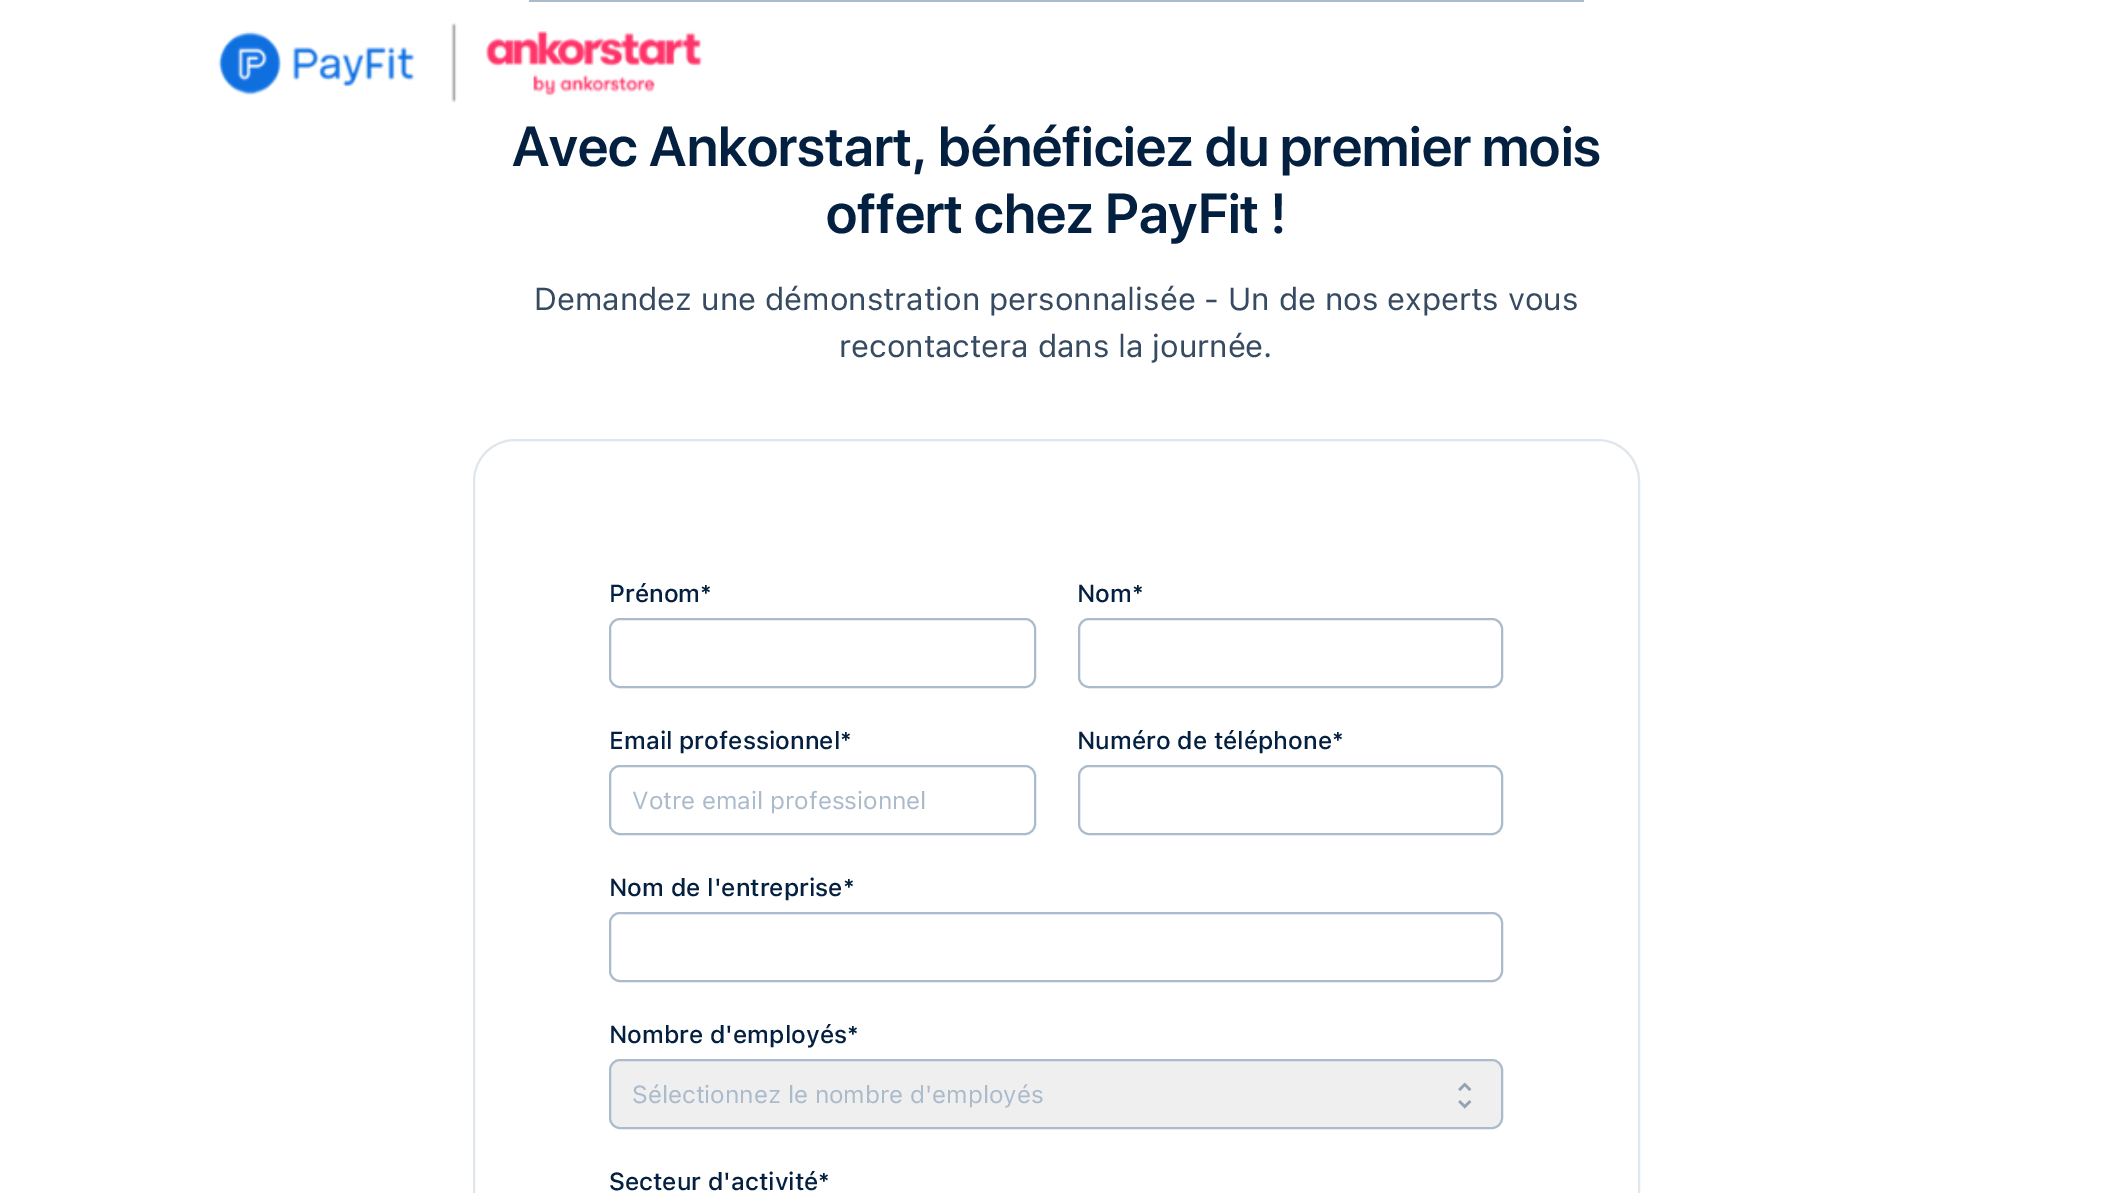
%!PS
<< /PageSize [2112 1193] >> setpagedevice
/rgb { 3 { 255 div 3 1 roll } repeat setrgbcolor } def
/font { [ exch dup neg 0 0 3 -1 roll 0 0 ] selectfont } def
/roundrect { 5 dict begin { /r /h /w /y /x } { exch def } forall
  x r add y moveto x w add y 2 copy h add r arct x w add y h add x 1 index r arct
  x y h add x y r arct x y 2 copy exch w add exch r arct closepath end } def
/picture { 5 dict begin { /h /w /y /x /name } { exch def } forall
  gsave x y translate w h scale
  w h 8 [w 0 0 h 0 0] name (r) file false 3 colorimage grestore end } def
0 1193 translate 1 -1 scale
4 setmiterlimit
255 255 255 rgb
0 0 2112 1193 rectfill
(img/1.rgb) 218 22 485 81 picture
171 187 204 rgb
529 0 1055 2 rectfill
223 230 237 rgb
2 setlinewidth
474 440 1165 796 41 roundrect stroke
171 187 204 rgb
610 619 425 68 10 roundrect stroke
1079 619 423 68 10 roundrect stroke
610 766 425 68 10 roundrect stroke
1079 766 423 68 10 roundrect stroke
610 913 892 68 10 roundrect stroke
239 239 239 rgb
610 1060 892 68 10 roundrect gsave fill grestore
171 187 204 rgb
stroke
(img/2.rgb) 1458 1082 14 27 picture
/SFProDisplay-SemiBold 56 font
4 32 64 rgb
512 166 moveto (Avec Ankorstart, bénéficiez du premier mois) show
826 233 moveto (offert chez PayFit !) show
/SFProText-Regular 31.5 font
54 74 97 rgb
534 310 moveto (Demandez une démonstration personnalisée - Un de nos experts vous) show
839 357 moveto (recontactera dans la journée.) show
/SFProText-Medium 24.5 font
4 32 64 rgb
[
  [(Prénom*) 609 602]
  [(Nom*) 1077 602]
  [(Email professionnel*) 609 749]
] { aload pop moveto show } forall
/SFProText-Regular 24.5 font
171 187 204 rgb
632 809 moveto (Votre email professionnel) show
/SFProText-Medium 24.5 font
4 32 64 rgb
[
  [(Numéro de téléphone*) 1077 749]
  [(Nom de l'entreprise*) 609 896]
  [(Nombre d'employés*) 609 1043]
] { aload pop moveto show } forall
/SFProText-Regular 24.5 font
171 187 204 rgb
632 1103 moveto (Sélectionnez le nombre d'employés) show
/SFProText-Medium 24.5 font
4 32 64 rgb
609 1190 moveto (Secteur d'activité*) show
showpage
